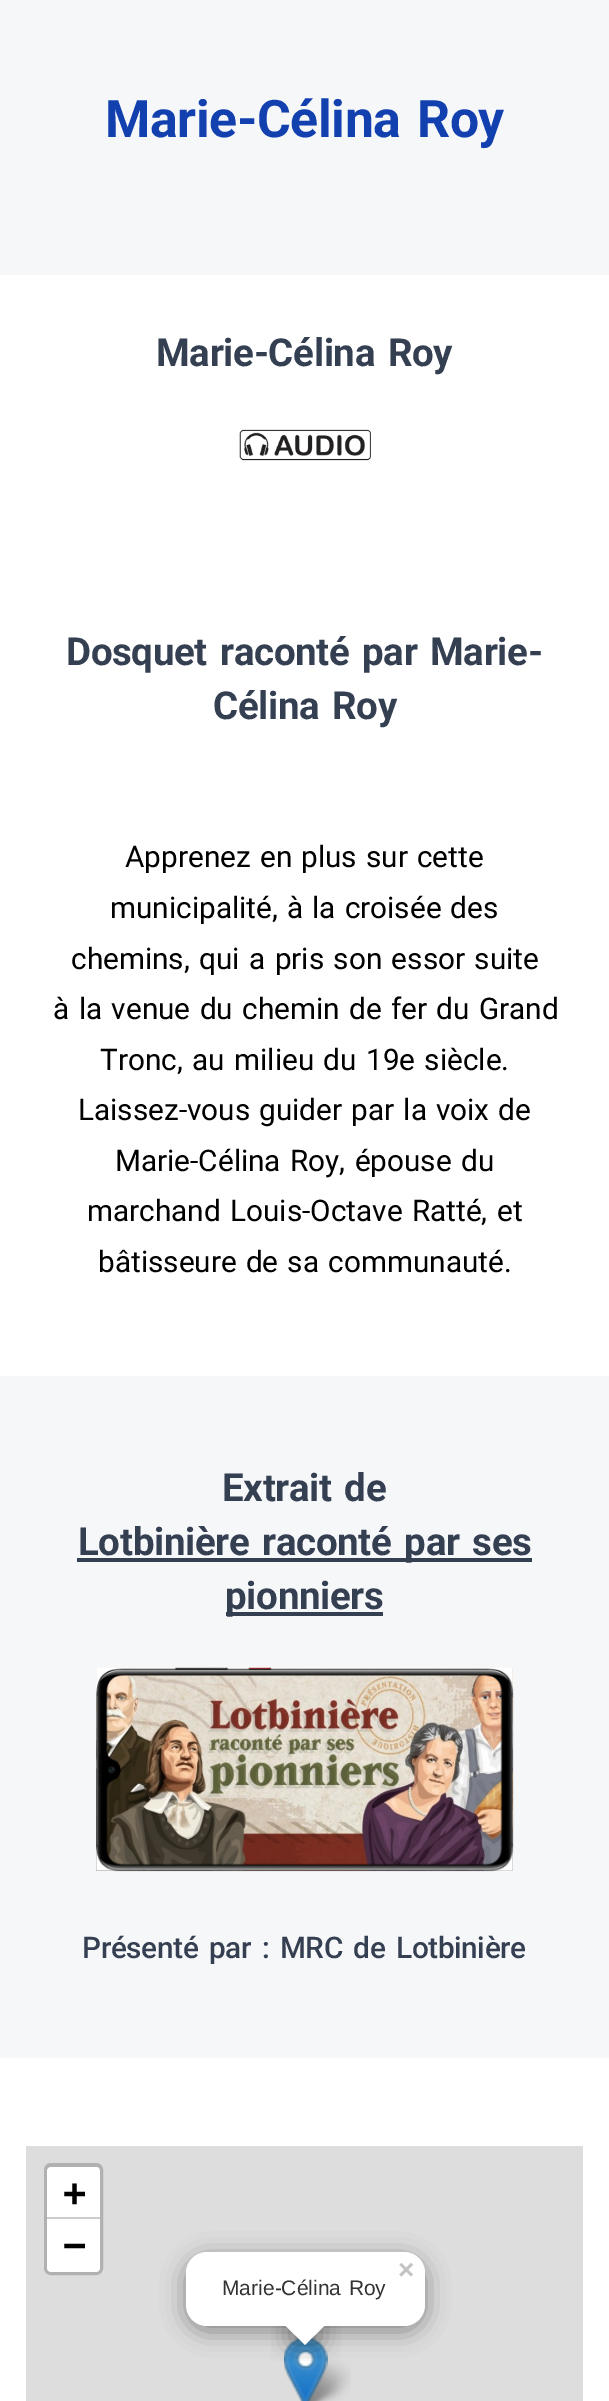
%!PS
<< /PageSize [609 2401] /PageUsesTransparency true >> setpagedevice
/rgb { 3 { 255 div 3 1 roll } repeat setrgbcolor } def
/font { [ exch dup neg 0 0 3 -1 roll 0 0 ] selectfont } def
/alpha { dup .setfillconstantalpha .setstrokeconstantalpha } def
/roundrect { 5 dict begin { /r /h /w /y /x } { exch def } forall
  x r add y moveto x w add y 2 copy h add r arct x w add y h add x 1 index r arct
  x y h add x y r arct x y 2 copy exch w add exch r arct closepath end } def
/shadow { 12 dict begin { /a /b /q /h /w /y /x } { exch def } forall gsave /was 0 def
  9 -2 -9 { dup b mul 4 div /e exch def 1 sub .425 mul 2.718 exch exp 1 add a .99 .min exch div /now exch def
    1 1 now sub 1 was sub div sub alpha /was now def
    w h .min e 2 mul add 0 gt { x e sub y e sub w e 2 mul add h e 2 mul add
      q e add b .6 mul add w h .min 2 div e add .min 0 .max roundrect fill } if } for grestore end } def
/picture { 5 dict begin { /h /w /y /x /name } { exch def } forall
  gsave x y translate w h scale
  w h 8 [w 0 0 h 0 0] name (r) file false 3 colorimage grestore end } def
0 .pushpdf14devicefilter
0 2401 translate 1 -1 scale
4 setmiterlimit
255 255 255 rgb
0 0 609 2401 rectfill
246 247 249 rgb
0 0 609 275 rectfill
(img/1.rgb) 239 429 132 32 picture
[
  [0 1376 609 682 246 247 249]
  [77 1558 455 4 52 63 82]
  [226 1612 157 4 52 63 82]
] { aload pop rgb rectfill } forall
(img/3.rgb) 96 1668 417 203 picture
(img/2.rgb) 96 1667 418 205 picture
221 221 221 rgb
26 2146 557 255 rectfill
177 177 177 rgb
4 setlinewidth
46 2165 55 108 5 roundrect stroke
255 255 255 rgb
51 2167 moveto 96 2167 lineto 98 2167 100 2169 100 2171 curveto 100 2219 lineto 47 2219 lineto 47 2171 lineto 47 2169 49 2167 51 2167 curveto closepath fill
204 204 204 rgb
47 2217 53 2 rectfill
255 255 255 rgb
47 2219 moveto 100 2219 lineto 100 2268 lineto 100 2270 98 2272 96 2272 curveto 51 2272 lineto 49 2272 47 2270 47 2268 curveto closepath fill
(img/5.rgb) 299 2359 52 42 picture
(img/4.rgb) 284 2337 44 64 picture
0 0 0 rgb
186 2258 239 73 21 12 0.4 shadow
255 255 255 rgb
186 2252 239 74 21 roundrect fill
gsave
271 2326 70 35 rectclip
0 0 0 rgb
291 2314 29 29 0 12.5 0.4 shadow
grestore
gsave
271 2326 70 35 rectclip
305 2303 moveto 326 2324 lineto 305 2345 lineto 284 2324 lineto closepath fill
grestore
/Roboto-Bold 51.75 font
18 64 175 rgb
105 137 moveto 3.5 0 32 -0.35 0 (Marie-Célina Roy) awidthshow
/Roboto-Bold 38.5 font
52 63 82 rgb
156 366 moveto 3.5 0 32 -0.35 0 (Marie-Célina Roy) awidthshow
66 665 moveto 3.5 0 32 -0.35 0 (Dosquet raconté par Marie-) awidthshow
213 719 moveto 3.5 0 32 -0.35 0 (Célina Roy) awidthshow
/Roboto-Regular 29.75 font
0 0 0 rgb
125 867 moveto 1.75 0 32 (Apprenez en plus sur cette) widthshow
110 918 moveto 1.75 0 32 (municipalité, à la croisée des) widthshow
71 969 moveto 2 0 32 (chemins, qui a pris son essor suite) widthshow
53 1019 moveto 2 0 32 (à la venue du chemin de fer du Grand) widthshow
100 1070 moveto 2 0 32 (Tronc, au milieu du 19e siècle.) widthshow
78 1120 moveto 1.75 0 32 (Laissez-vous guider par la voix de) widthshow
115 1171 moveto 2 0 32 (Marie-Célina Roy, épouse du) widthshow
87 1221 moveto 2 0 32 (marchand Louis-Octave Ratté, et) widthshow
98 1272 moveto 1.75 0 32 (bâtisseure de sa communauté.) widthshow
/Roboto-Bold 38.5 font
52 63 82 rgb
222 1501 moveto 3.5 0 32 -0.35 0 (Extrait de) awidthshow
78 1555 moveto 3.5 0 32 -0.35 0 (Lotbinière raconté par ses) awidthshow
225 1609 moveto -0.35 0 (pionniers) ashow
/Roboto-Medium 29.75 font
82 1958 moveto 3.5 0 32 -0.35 0 (Présenté par : MRC de Lotbinière) awidthshow
/DejaVuSansMono-Bold 38.5 font
0 0 0 rgb
63 2206 moveto (+) show
63 2258 moveto (−) show
/LiberationSans-Bold 28 font
195 195 195 rgb
398 2279 moveto (×) show
/LiberationSans-Regular 21 font
51 51 51 rgb
222 2295 moveto 1.75 0 32 (Marie-Célina Roy) widthshow
.poppdf14devicefilter showpage
